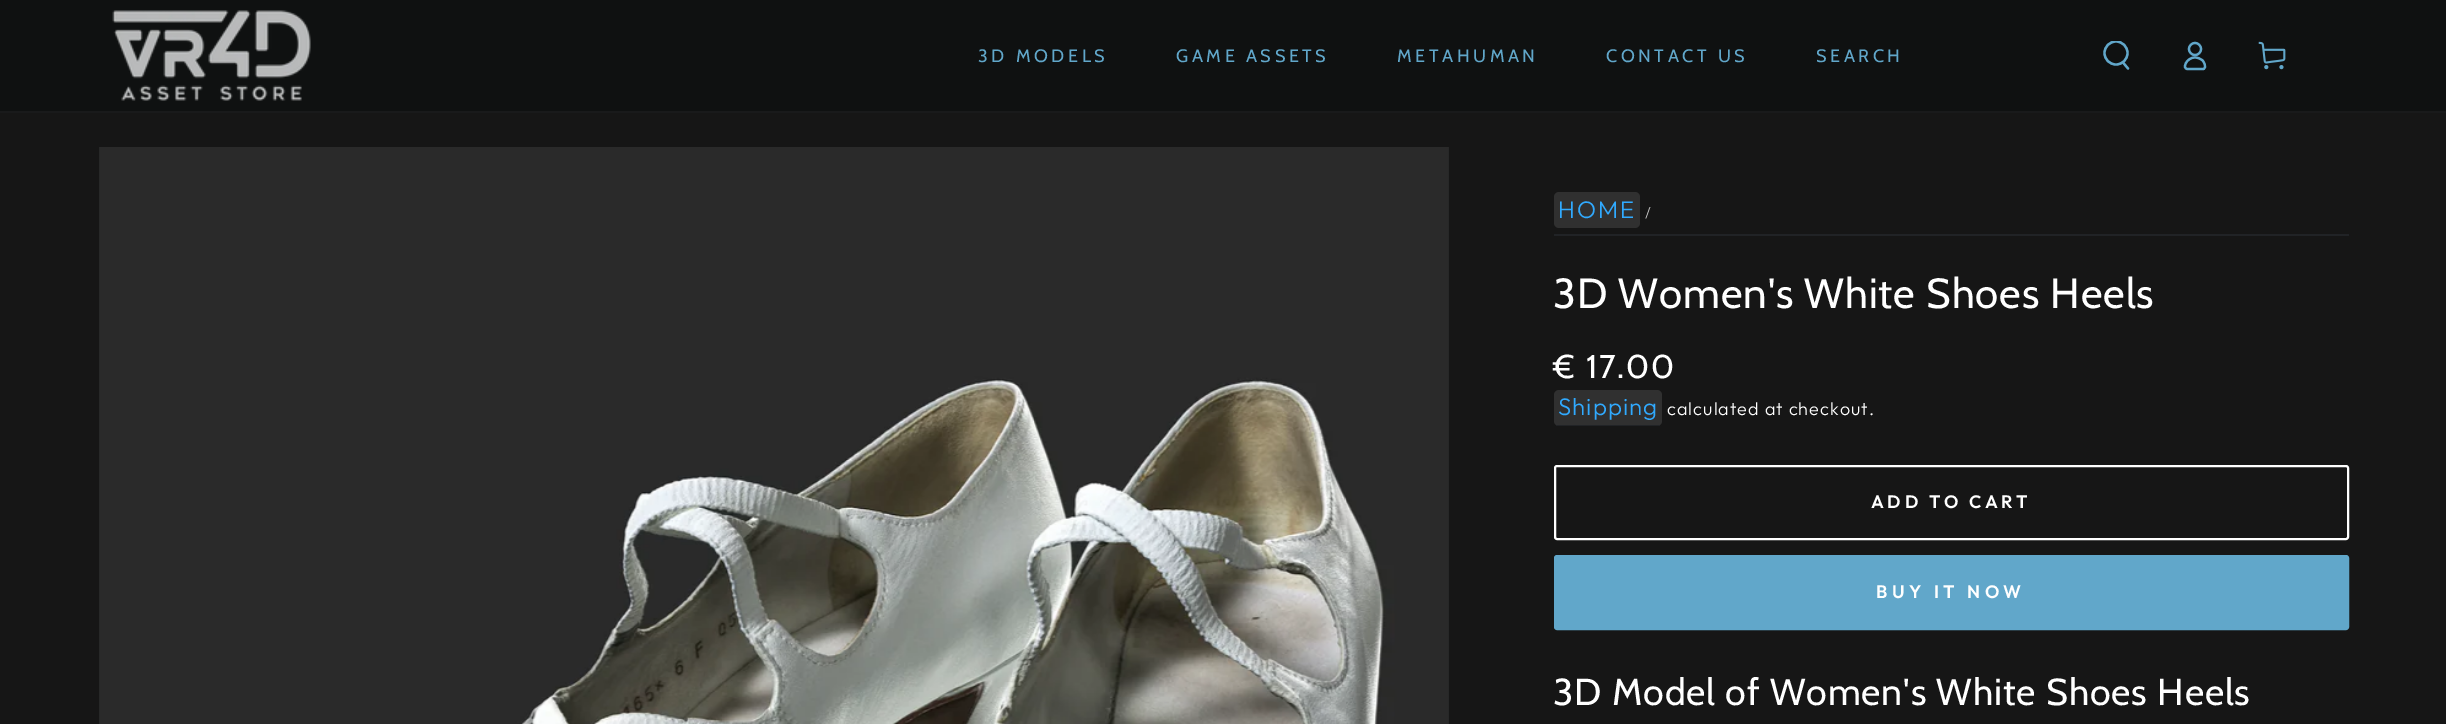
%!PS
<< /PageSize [2446 724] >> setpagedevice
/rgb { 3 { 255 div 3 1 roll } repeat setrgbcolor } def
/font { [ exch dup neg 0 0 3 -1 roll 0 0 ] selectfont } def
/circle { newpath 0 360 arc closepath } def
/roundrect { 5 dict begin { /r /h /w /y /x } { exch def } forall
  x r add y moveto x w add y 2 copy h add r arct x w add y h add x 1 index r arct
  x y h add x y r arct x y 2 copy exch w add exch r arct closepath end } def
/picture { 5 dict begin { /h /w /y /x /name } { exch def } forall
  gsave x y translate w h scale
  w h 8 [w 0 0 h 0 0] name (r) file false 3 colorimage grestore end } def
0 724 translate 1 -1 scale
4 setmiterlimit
22 22 22 rgb
0 0 2446 724 rectfill
25 26 27 rgb
0 111 moveto 0 113 lineto 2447 113 lineto 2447 2 lineto 2446 2 lineto 2446 111 lineto closepath fill
15 17 17 rgb
0 0 2446 111 rectfill
(img/1.rgb) 112 10 199 91 picture
gsave
2102 41 30 30 rectclip
97 167 202 rgb
2.3 setlinewidth
2116 53 11.5 circle stroke
grestore
97 167 202 rgb
2.3 setlinewidth
1 setlinecap
2123 62.5 moveto 2128 68.5 lineto stroke
2.2 setlinewidth
0 setlinecap
2195 57.5 moveto 2186 57.5 2182 69 2187.5 69 curveto 2203.5 69 lineto 2207 67.5 2204 61.5 2202 60 curveto 2200 58.5 2197.5 57.5 2195 57.5 curveto closepath stroke
2195 49 6 circle stroke
(img/2.rgb) 2258 41 28 29 picture
(img/3.rgb) 99 147 1350 577 picture
33 35 38 rgb
1554 234 795 2 rectfill
48 48 48 rgb
1554 192 86 36 5 roundrect fill
1554 390 108 36 5 roundrect fill
gsave
1554 390 108 36 5 roundrect clip newpath
33 35 38 rgb
1554 425 108 1 rectfill
grestore
255 255 255 rgb
2 setlinewidth
1555 466 793 73 2 roundrect stroke
97 167 202 rgb
1555 556 793 73 2 roundrect gsave fill grestore
stroke
/Cabin-Regular 18 font
978 62 moveto 3.6 0 (3D MODELS) ashow
1176 62 moveto 3.6 0 (GAME ASSETS) ashow
1397 62 moveto 3.6 0 (METAHUMAN) ashow
1606 62 moveto 3.6 0 (CONTACT US) ashow
1816 62 moveto 3.6 0 (SEARCH) ashow
/Outfit-Light 24 font
48 170 255 rgb
1558 218 moveto 2 0 (HOME) ashow
/Outfit-Light 15 font
197 197 197 rgb
1645 218 moveto 2 0 (/) ashow
/Cabin-Regular 42 font
255 255 255 rgb
1553 308 moveto 0.9 0 (3D Women's White Shoes Heels) ashow
/Cabin-Regular 33 font
1553 378 moveto 2 0 (€ 17.00) ashow
/Outfit-Light 24 font
48 170 255 rgb
1558 415 moveto 1.05 0 (Shipping) ashow
/Outfit-Light 18 font
255 255 255 rgb
1667 415 moveto 1.05 0 (calculated at checkout.) ashow
/Outfit-SemiBold 18 font
1871 508 moveto 3.6 0 (ADD TO CART) ashow
1876 598 moveto 4.5 0 (BUY IT NOW) ashow
/Cabin-Regular 37.5 font
1553 705 moveto 0.9 0 (3D Model of Women's White Shoes Heels) ashow
showpage
